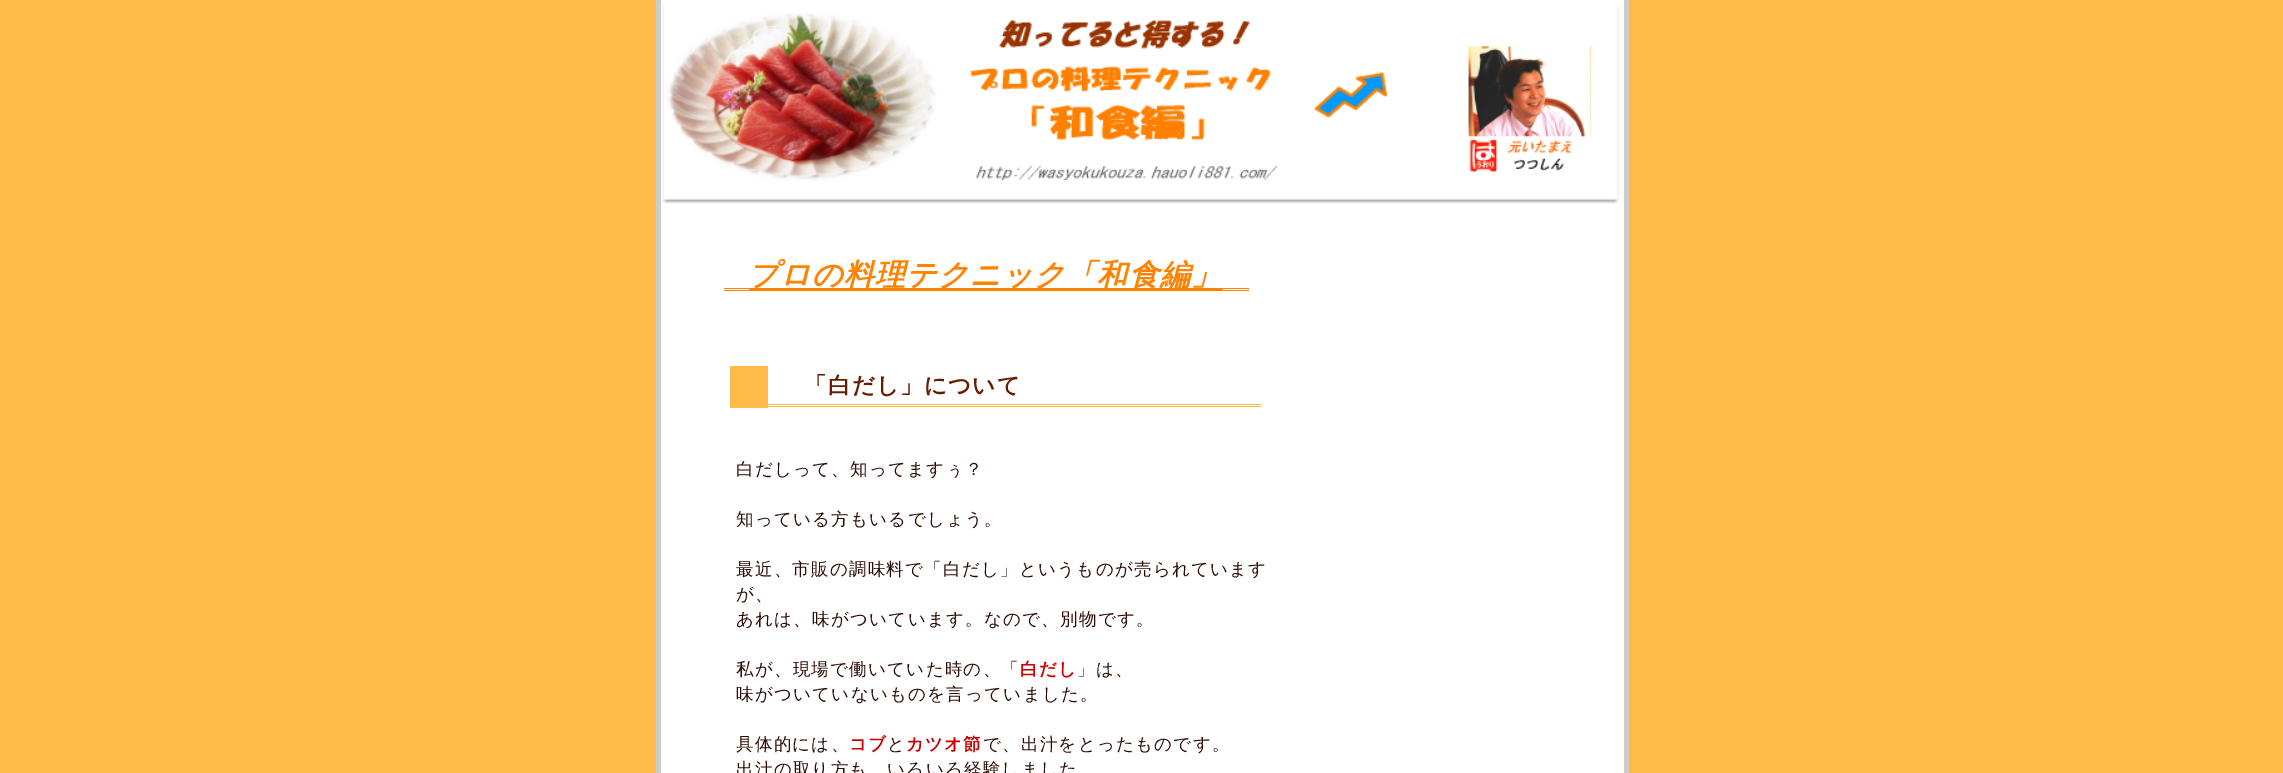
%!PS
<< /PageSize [2283 773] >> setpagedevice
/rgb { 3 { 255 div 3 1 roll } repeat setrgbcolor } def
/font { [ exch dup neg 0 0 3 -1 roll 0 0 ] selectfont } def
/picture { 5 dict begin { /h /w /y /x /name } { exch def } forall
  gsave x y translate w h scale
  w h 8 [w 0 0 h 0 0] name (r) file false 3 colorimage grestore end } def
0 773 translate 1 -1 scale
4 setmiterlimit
255 186 72 rgb
0 0 2283 773 rectfill
[
  [661 0 963 773 255 255 255]
  [1624 0 5 773 204 204 204]
  [656 0 5 773 204 204 204]
] { aload pop rgb rectfill } forall
(img/1.rgb) 662 4 957 200 picture
[
  [724 288 525 1 255 130 0]
  [724 290 525 1 255 130 0]
  [749 289 474 1 255 130 0]
  [768 404 493 1 255 186 72]
  [768 406 493 1 255 186 72]
  [730 366 38 42 255 186 72]
] { aload pop rgb rectfill } forall
/WenQuanYiZenHei-BoldItalic 30 font
255 130 0 rgb
748 285 moveto 1.25 0 (プロの料理テクニック「和食編」) ashow
/WenQuanYiZenHei-Bold 22.5 font
102 28 0 rgb
804 393 moveto 1.25 0 (「白だし」について) ashow
/WenQuanYiZenHei-Medium 17.5 font
45 11 4 rgb
736 475 moveto 1.25 0 (白だしって、知ってますぅ？) ashow
736 525 moveto 1.25 0 (知っている方もいるでしょう。) ashow
736 575 moveto 1.25 0 (最近、市販の調味料で「白だし」というものが売られています) ashow
736 600 moveto 1.25 0 (が、) ashow
736 625 moveto 1.25 0 (あれは、味がついています。なので、別物です。) ashow
736 675 moveto 1.25 0 (私が、現場で働いていた時の、「) ashow
/WenQuanYiZenHei-Bold 17.5 font
204 0 0 rgb
1020 675 moveto 1.25 0 (白だし) ashow
/WenQuanYiZenHei-Medium 17.5 font
45 11 4 rgb
1077 675 moveto 1.25 0 (」は、) ashow
736 700 moveto 1.25 0 (味がついていないものを言っていました。) ashow
736 750 moveto 1.25 0 (具体的には、) ashow
/WenQuanYiZenHei-Bold 17.5 font
204 0 0 rgb
849 750 moveto 1.25 0 (コブ) ashow
/WenQuanYiZenHei-Medium 17.5 font
45 11 4 rgb
887 750 moveto 1.25 0 (と) ashow
/WenQuanYiZenHei-Bold 17.5 font
204 0 0 rgb
906 750 moveto 1.25 0 (カツオ節) ashow
/WenQuanYiZenHei-Medium 17.5 font
45 11 4 rgb
983 750 moveto 1.25 0 (で、出汁をとったものです。) ashow
736 775 moveto 1.25 0 (出汁の取り方も、いろいろ経験しました) ashow
showpage
